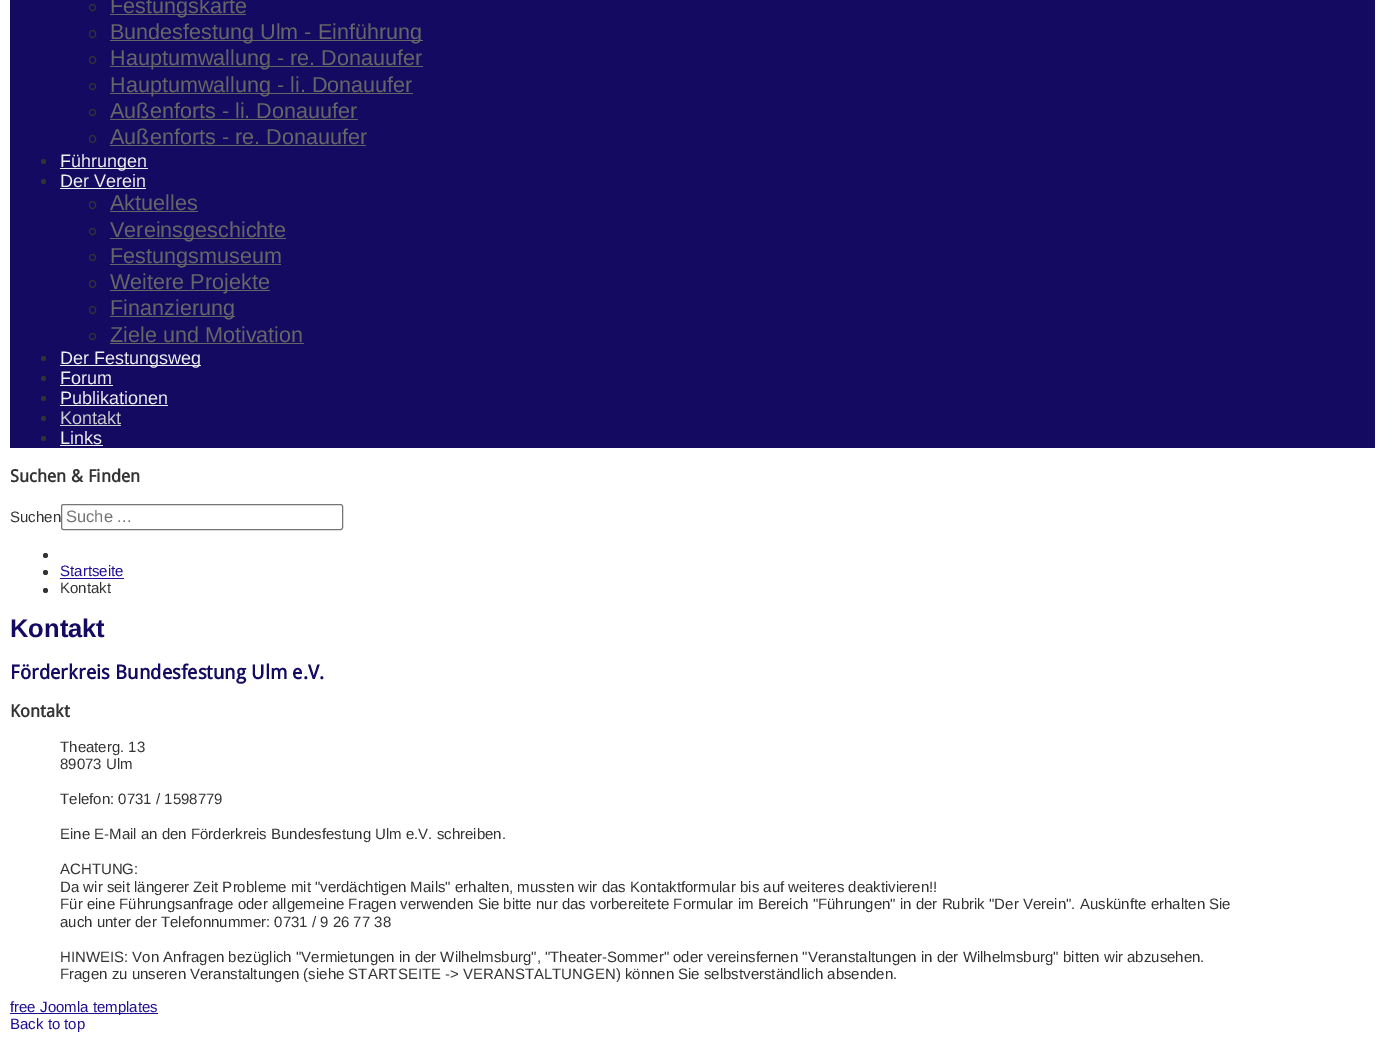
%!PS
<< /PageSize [1384 1042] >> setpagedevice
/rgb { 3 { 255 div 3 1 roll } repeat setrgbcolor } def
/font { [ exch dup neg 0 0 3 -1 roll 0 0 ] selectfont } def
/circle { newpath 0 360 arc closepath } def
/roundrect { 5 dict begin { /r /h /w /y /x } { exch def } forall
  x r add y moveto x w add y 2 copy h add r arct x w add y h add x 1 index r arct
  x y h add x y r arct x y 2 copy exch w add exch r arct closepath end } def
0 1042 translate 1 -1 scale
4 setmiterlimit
255 255 255 rgb
0 0 1384 1042 rectfill
21 10 97 rgb
10 0 1365 448 rectfill
51 51 51 rgb
92.5 7.5 3 circle stroke
102 102 102 rgb
110 14 136 1 rectfill
51 51 51 rgb
89.5 30.5 6 7 3 roundrect stroke
102 102 102 rgb
110 40 313 1 rectfill
51 51 51 rgb
89.5 56.5 6 7 3 roundrect stroke
102 102 102 rgb
110 66 313 1 rectfill
51 51 51 rgb
92.5 86.5 3 circle stroke
102 102 102 rgb
110 93 303 1 rectfill
51 51 51 rgb
92.5 112.5 3 circle stroke
102 102 102 rgb
110 119 248 1 rectfill
51 51 51 rgb
89.5 135.5 6 7 3 roundrect stroke
102 102 102 rgb
110 145 256 1 rectfill
51 51 51 rgb
43.5 161.5 2.5 circle fill
239 239 239 rgb
60 168 88 1 rectfill
51 51 51 rgb
43.5 181.5 2.5 circle fill
239 239 239 rgb
60 188 86 1 rectfill
51 51 51 rgb
89.5 201.5 6 7 3 roundrect stroke
102 102 102 rgb
110 211 88 1 rectfill
51 51 51 rgb
92.5 231.5 3 circle stroke
102 102 102 rgb
110 238 176 1 rectfill
51 51 51 rgb
92.5 257.5 3 circle stroke
102 102 102 rgb
110 264 171 1 rectfill
51 51 51 rgb
89.5 280.5 6 7 3 roundrect stroke
102 102 102 rgb
110 290 160 1 rectfill
51 51 51 rgb
89.5 306.5 6 7 3 roundrect stroke
102 102 102 rgb
110 316 125 1 rectfill
51 51 51 rgb
92.5 336.5 3 circle stroke
102 102 102 rgb
110 343 194 1 rectfill
51 51 51 rgb
43.5 358.5 2.5 circle fill
239 239 239 rgb
60 365 141 1 rectfill
51 51 51 rgb
43.5 378.5 2.5 circle fill
239 239 239 rgb
60 385 53 1 rectfill
51 51 51 rgb
43.5 398.5 2.5 circle fill
239 239 239 rgb
60 405 108 1 rectfill
51 51 51 rgb
43.5 418.5 2.5 circle fill
204 204 204 rgb
60 425 61 1 rectfill
51 51 51 rgb
43.5 438.5 2.5 circle fill
239 239 239 rgb
60 445 43 1 rectfill
118 118 118 rgb
61.5 504.5 281 25 2 roundrect stroke
51 51 51 rgb
45.5 555.5 2.5 circle fill
45.5 572.5 2.5 circle fill
32 15 148 rgb
60 578 64 1 rectfill
51 51 51 rgb
45.5 590.5 2.5 circle fill
32 15 148 rgb
10 1013 148 1 rectfill
/LiberationSans-Regular 21.6 font
102 102 102 rgb
[
  [(Festungskarte) 110 13]
  [(Bundesfestung Ulm - Einführung) 110 39]
  [(Hauptumwallung - re. Donauufer) 110 65]
  [(Hauptumwallung - li. Donauufer) 110 92]
  [(Außenforts - li. Donauufer) 110 118]
  [(Außenforts - re. Donauufer) 110 144]
] { aload pop moveto show } forall
/LiberationSans-Regular 18 font
239 239 239 rgb
60 167 moveto (Führungen) show
60 187 moveto (Der Verein) show
/LiberationSans-Regular 21.6 font
102 102 102 rgb
[
  [(Aktuelles) 110 210]
  [(Vereinsgeschichte) 110 237]
  [(Festungsmuseum) 110 263]
  [(Weitere Projekte) 110 289]
  [(Finanzierung) 110 315]
  [(Ziele und Motivation) 110 342]
] { aload pop moveto show } forall
/LiberationSans-Regular 18 font
239 239 239 rgb
[
  [(Der Festungsweg) 60 364]
  [(Forum) 60 384]
  [(Publikationen) 60 404]
] { aload pop moveto show } forall
204 204 204 rgb
60 424 moveto (Kontakt) show
239 239 239 rgb
60 444 moveto (Links) show
/DroidSans-Bold 17.25 font
51 51 51 rgb
10 482 moveto (Suchen & Finden) show
/LiberationSans-Regular 15 font
10 522 moveto (Suchen) show
/LiberationSans-Regular 16.5 font
117 117 117 rgb
66 522 moveto (Suche ...) show
/LiberationSans-Regular 15 font
32 15 148 rgb
60 576 moveto (Startseite) show
51 51 51 rgb
60 593 moveto (Kontakt) show
/LiberationSans-Bold 25.5 font
21 10 97 rgb
10 637 moveto (Kontakt) show
/DroidSans-Bold 19.5 font
10 679 moveto (Förderkreis Bundesfestung Ulm e.V.) show
/DroidSans-Bold 17.25 font
51 51 51 rgb
10 717 moveto (Kontakt) show
/LiberationSans-Regular 15 font
[
  [(Theaterg. 13) 60 752]
  [(89073 Ulm) 60 769]
  [(Telefon: 0731 / 1598779) 60 804]
  [(Eine E-Mail an den Förderkreis Bundesfestung Ulm e.V. schreiben.) 60 839]
  [(ACHTUNG:) 60 874]
  [(Da wir seit längerer Zeit Probleme mit "verdächtigen Mails" erhalten, mussten wir das Kontaktformular bis auf weiteres deaktivieren!!) 60 892]
  [(Für eine Führungsanfrage oder allgemeine Fragen verwenden Sie bitte nur das vorbereitete Formular im Bereich "Führungen" in der Rubrik "Der Verein". Auskünfte erhalten Sie) 60 909]
  [(auch unter der Telefonnummer: 0731 / 9 26 77 38) 60 927]
  [(HINWEIS: Von Anfragen bezüglich "Vermietungen in der Wilhelmsburg", "Theater-Sommer" oder vereinsfernen "Veranstaltungen in der Wilhelmsburg" bitten wir abzusehen.) 60 962]
  [(Fragen zu unseren Veranstaltungen \(siehe STARTSEITE -> VERANSTALTUNGEN\) können Sie selbstverständlich absenden.) 60 979]
] { aload pop moveto show } forall
32 15 148 rgb
10 1012 moveto (free Joomla templates) show
10 1029 moveto (Back to top) show
showpage
